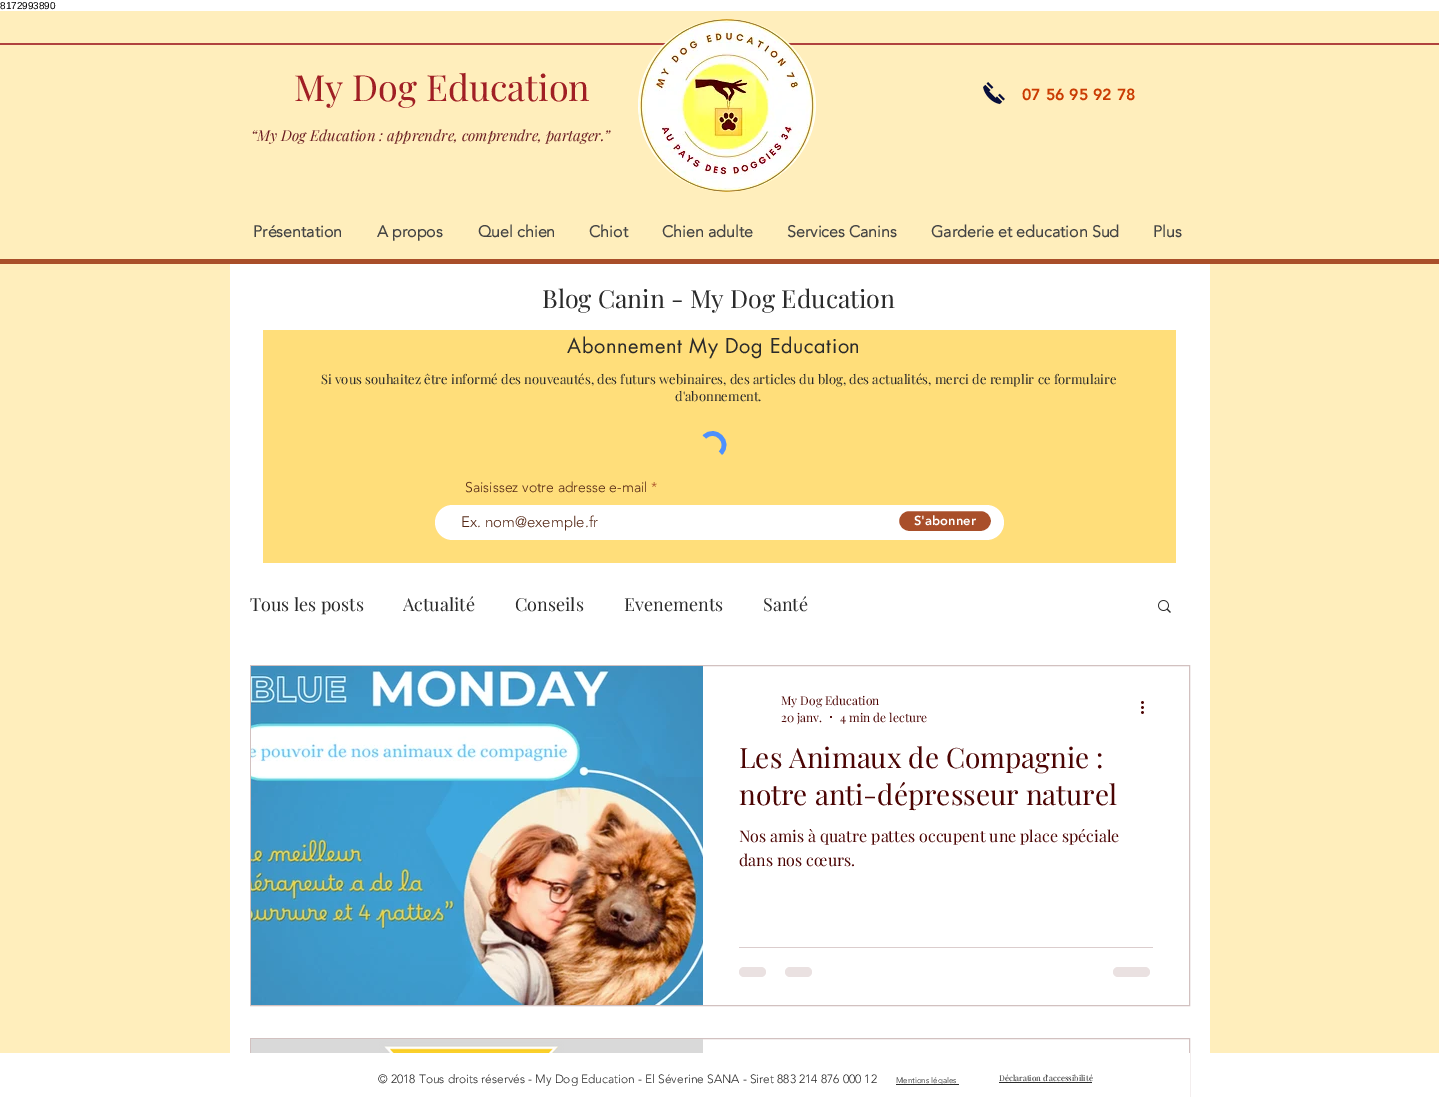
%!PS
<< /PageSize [1439 1097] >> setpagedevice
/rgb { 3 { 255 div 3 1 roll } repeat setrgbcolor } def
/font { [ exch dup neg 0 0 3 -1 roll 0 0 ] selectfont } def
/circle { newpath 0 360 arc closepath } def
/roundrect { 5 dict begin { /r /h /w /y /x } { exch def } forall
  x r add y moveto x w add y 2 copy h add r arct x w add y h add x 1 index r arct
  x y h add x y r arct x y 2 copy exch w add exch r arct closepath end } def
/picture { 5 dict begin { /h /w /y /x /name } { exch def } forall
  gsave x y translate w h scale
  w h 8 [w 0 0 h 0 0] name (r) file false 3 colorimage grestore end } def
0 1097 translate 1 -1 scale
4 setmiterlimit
255 255 255 rgb
0 0 1439 1097 rectfill
255 238 188 rgb
0 11 1439 1042 rectfill
176 66 62 rgb
0 43 1439 2 rectfill
(img/1.rgb) 638 19 178 173 picture
(img/2.rgb) 983 82 22 23 picture
[
  [0 259 1439 5 169 79 42]
  [230 264 980 789 255 255 255]
  [263 330 913 233 255 222 122]
] { aload pop rgb rectfill } forall
77 144 254 rgb
4.6 setlinewidth
704.5 437 moveto 715 426 731.5 442.5 720.5 453 curveto stroke
255 255 255 rgb
435 505 569 35 17.5 roundrect fill
169 79 42 rgb
898 510 94 22 11 roundrect gsave fill grestore
255 255 255 rgb
2 setlinewidth
stroke
(img/3.rgb) 1158 600 13 13 picture
210 193 192 rgb
1 setlinewidth
250.5 665.5 939 340 rectstroke
(img/4.rgb) 251 666 452 339 picture
76 5 4 rgb
831 717 1 circle fill
(img/5.rgb) 1141 701 3 13 picture
219 205 205 rgb
739 947 414 1 rectfill
234 225 225 rgb
739 967 27 10 5 roundrect fill
785 967 27 10 5 roundrect fill
1113 967 37 10 5 roundrect fill
210 193 192 rgb
250.5 1038.5 939 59 rectstroke
(img/6.rgb) 251 1039 452 14 picture
[
  [250 1053 940 44 255 255 255]
  [896 1084 63 1 42 42 42]
  [999 1082 93 1 42 42 42]
] { aload pop rgb rectfill } forall
/LiberationSans-Regular 10 font
0 0 0 rgb
0 9 moveto (8172993890) show
/PlayfairDisplay-Regular 36 font
160 31 36 rgb
294 101 moveto (My Dog Education) show
/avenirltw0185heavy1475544-Black 16 font
202 59 2 rgb
1022 100 moveto (07 56 95 92 78) show
/PlayfairDisplay-Italic 15 font
107 30 35 rgb
251 141 moveto (“My Dog Education : apprendre, comprendre, partager.”) show
/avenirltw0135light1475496-Bold 16 font
68 68 68 rgb
[
  [(Présentation) 253 237]
  [(A propos) 377 237]
  [(Quel chien) 478 237]
  [(Chiot) 589 237]
  [(Chien adulte) 662 237]
  [(Services Canins) 787 237]
  [(Garderie et education Sud) 931 237]
  [(Plus) 1153 237]
] { aload pop moveto show } forall
/PlayfairDisplay-Regular 25 font
42 42 42 rgb
542 308 moveto (Blog Canin - My Dog Education) show
/futura-Regular 20 font
567 353 moveto 0.6 0 (Abonnement My Dog Education) ashow
/PlayfairDisplay-Regular 13 font
321 384 moveto (Si vous souhaitez être informé des nouveautés, des futurs webinaires, des articles du blog, des actualités, merci de remplir ce formulaire) show
675 401 moveto (d'abonnement.) show
/avenirltw0135light1475496-Light 14 font
84 39 21 rgb
465 492 moveto (Saisissez votre adresse e-mail) show
169 79 42 rgb
651 492 moveto (*) show
/avenirltw0135light1475496-Light 15 font
84 39 21 rgb
461 527 moveto (Ex. nom@exemple.fr) show
/avenirltw0185heavy1475544-Black 13 font
255 255 255 rgb
914 525 moveto (S'abonner) show
/PlayfairDisplay-Regular 18 font
42 42 42 rgb
[
  [(Tous les posts) 250 611]
  [(Actualité) 403 611]
  [(Conseils) 515 611]
  [(Evenements) 624 611]
  [(Santé) 763 611]
] { aload pop moveto show } forall
/PlayfairDisplay-Regular 12 font
76 5 4 rgb
[
  [(My Dog Education) 781 705]
  [(20 janv.) 781 722]
  [(4 min de lecture) 840 722]
] { aload pop moveto show } forall
/PlayfairDisplay-Regular 28 font
739 768 moveto (Les Animaux de Compagnie :) show
739 805 moveto (notre anti-dépresseur naturel) show
/PlayfairDisplay-Regular 16 font
739 842 moveto (Nos amis à quatre pattes occupent une place spéciale) show
739 866 moveto (dans nos cœurs.) show
/avenirltw0135light1475496-Light 12 font
42 42 42 rgb
378 1083 moveto (© 2018 Tous droits réservés - My Dog Education - El Séverine SANA - Siret 883 214 876 000 12) show
/avenirltw0135light1475496-Light 8 font
896 1083 moveto (Mentions légales) show
/PlayfairDisplay-Regular 8 font
999 1081 moveto (Déclaration d'accessibilité) show
showpage
